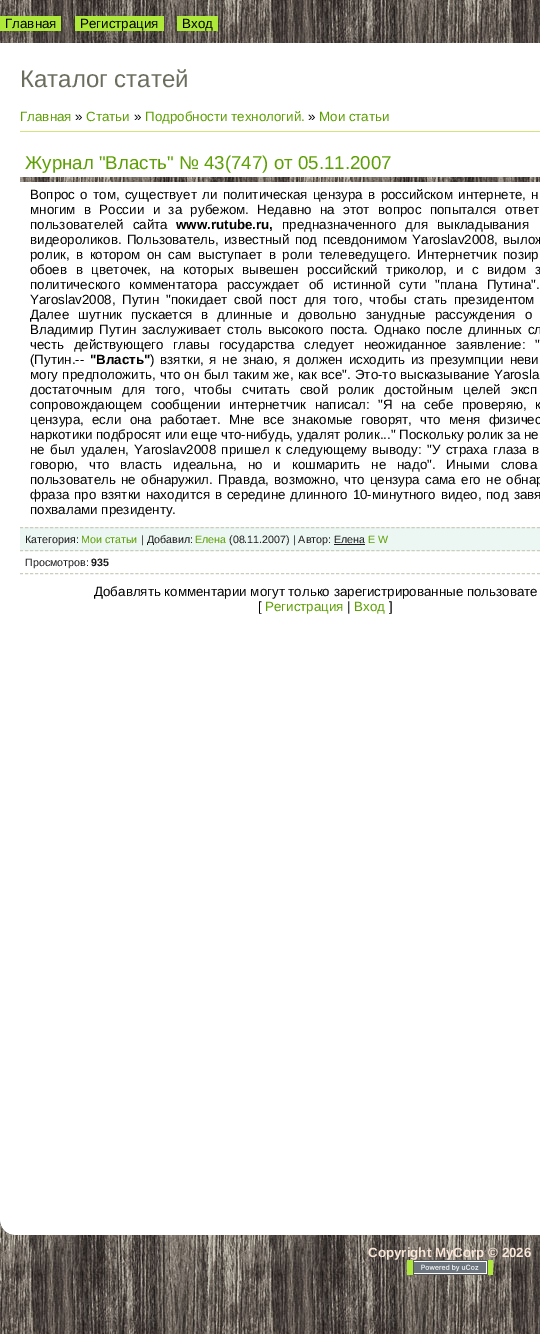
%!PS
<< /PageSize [540 1334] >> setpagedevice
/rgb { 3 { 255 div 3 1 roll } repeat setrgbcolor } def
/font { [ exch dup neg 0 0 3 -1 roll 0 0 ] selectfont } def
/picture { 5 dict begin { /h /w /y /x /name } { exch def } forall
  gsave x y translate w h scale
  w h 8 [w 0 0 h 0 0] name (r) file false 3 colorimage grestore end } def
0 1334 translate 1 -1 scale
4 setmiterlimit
255 255 255 rgb
0 0 540 1334 rectfill
(img/1.rgb) 0 0 540 1334 picture
[
  [0 16 61 15 174 233 57]
  [75 16 89 15 174 233 57]
  [177 16 41 15 174 233 57]
  [0 43 540 1175 255 255 255]
  [20 131 520 1 214 227 125]
] { aload pop rgb rectfill } forall
(img/2.rgb) 20 177 520 5 picture
236 246 242 rgb
20 527 520 24 rectfill
203 206 188 rgb
[3 2.02] 0 setdash
20 527.5 moveto 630 527.5 lineto stroke
20 550.5 moveto 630 550.5 lineto stroke
26 26 26 rgb
334 544 31 1 rectfill
203 206 188 rgb
20 573.5 moveto 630 573.5 lineto stroke
(img/3.rgb) 0 1218 540 17 picture
174 233 57 rgb
407 1260 86 15 rectfill
(img/4.rgb) 413 1260 75 15 picture
/LiberationSans-Regular 13.35 font
0 0 0 rgb
[
  [(Главная) 5 28]
  [(Регистрация) 80 28]
  [(Вход) 182 28]
] { aload pop moveto show } forall
/LiberationSans-Regular 24 font
107 109 94 rgb
20 87 moveto (Каталог статей) show
/LiberationSans-Regular 13.35 font
92 159 0 rgb
20 121 moveto (Главная) show
0 0 0 rgb
75 121 moveto (») show
92 159 0 rgb
86 121 moveto (Статьи) show
0 0 0 rgb
134 121 moveto (») show
92 159 0 rgb
145 121 moveto (Подробности технологий.) show
0 0 0 rgb
308 121 moveto (») show
92 159 0 rgb
319 121 moveto (Мои статьи) show
/LiberationSans-Regular 18.7 font
25 169 moveto (Журнал "Власть" № 43\(747\) от 05.11.2007) show
/LiberationSans-Regular 13.35 font
0 0 0 rgb
30 199 moveto 1.6 0 32 (Вопрос о том, существует ли политическая цензура в российском интернете, н) widthshow
30 214 moveto 4.75 0 32 (многим в России и за рубежом. Недавно на этот вопрос попытался ответ) widthshow
30 229 moveto 5.25 0 32 (пользователей сайта) widthshow
/LiberationSans-Bold 13.35 font
176 229 moveto (www.rutube.ru,) show
/LiberationSans-Regular 13.35 font
282 229 moveto 5.25 0 32 (предназначенного для выкладывания) widthshow
30 244 moveto 1.75 0 32 (видеороликов. Пользователь, известный под псевдонимом Yaroslav2008, вылож) widthshow
30 259 moveto 2.75 0 32 (ролик, в котором он сам выступает в роли телеведущего. Интернетчик позир) widthshow
30 274 moveto 4.9 0 32 (обоев в цветочек, на которых вывешен российский триколор, и с видом з) widthshow
30 289 moveto 5.5 0 32 (политического комментатора рассуждает об истинной сути "плана Путина".) widthshow
30 304 moveto 3 0 32 (Yaroslav2008, Путин "покидает свой пост для того, чтобы стать президентом) widthshow
30 319 moveto 5.25 0 32 (Далее шутник пускается в длинные и довольно занудные рассуждения о) widthshow
30 334 moveto 2 0 32 (Владимир Путин заслуживает столь высокого поста. Однако после длинных сл) widthshow
30 349 moveto 5.75 0 32 (честь действующего главы государства следует неожиданное заявление: ") widthshow
30 364 moveto (\(Путин.--) show
/LiberationSans-Bold 13.35 font
90 364 moveto ("Власть") show
/LiberationSans-Regular 13.35 font
150 364 moveto 2 0 32 (\) взятки, я не знаю, я должен исходить из презумпции неви) widthshow
30 379 moveto 0.6 0 32 (могу предположить, что он был таким же, как все". Это-то высказывание Yarosla) widthshow
30 394 moveto 6.25 0 32 (достаточным для того, чтобы считать свой ролик достойным целей эксп) widthshow
30 409 moveto 4.75 0 32 (сопровождающем сообщении интернетчик написал: "Я на себе проверяю, к) widthshow
30 424 moveto 4.5 0 32 (цензура, если она работает. Мне все знакомые говорят, что меня физичес) widthshow
30 439 moveto (наркотики подбросят или еще что-нибудь, удалят ролик..." Поскольку ролик за не) show
30 454 moveto 1.75 0 32 (не был удален, Yaroslav2008 пришел к следующему выводу: "У страха глаза в) widthshow
30 469 moveto 7.25 0 32 (говорю, что власть идеальна, но и кошмарить не надо". Иными слова) widthshow
30 484 moveto 1.6 0 32 (пользователь не обнаружил. Правда, возможно, что цензура сама его не обнар) widthshow
30 499 moveto 1.1 0 32 (фраза про взятки находится в середине длинного 10-минутного видео, под завя) widthshow
30 514 moveto (похвалами президенту.) show
/LiberationSans-Regular 10.7 font
26 26 26 rgb
25 543 moveto (Категория:) show
92 159 0 rgb
81 543 moveto (Мои статьи) show
26 26 26 rgb
141 543 moveto (| Добавил:) show
92 159 0 rgb
195 543 moveto (Елена) show
26 26 26 rgb
229 543 moveto (\(08.11.2007\) | Автор: Елена) show
92 159 0 rgb
368 543 moveto (E W) show
26 26 26 rgb
25 566 moveto (Просмотров:) show
/LiberationSans-Bold 10.7 font
91 566 moveto (935) show
/LiberationSans-Regular 13.35 font
0 0 0 rgb
94 596 moveto (Добавлять комментарии могут только зарегистрированные пользовате) show
258 611 moveto ([) show
92 159 0 rgb
265 611 moveto (Регистрация) show
0 0 0 rgb
347 611 moveto (|) show
92 159 0 rgb
354 611 moveto (Вход) show
0 0 0 rgb
389 611 moveto (]) show
/LiberationSans-Bold 13.35 font
249 232 217 rgb
368 1257 moveto (Copyright MyCorp © 2026) show
showpage
